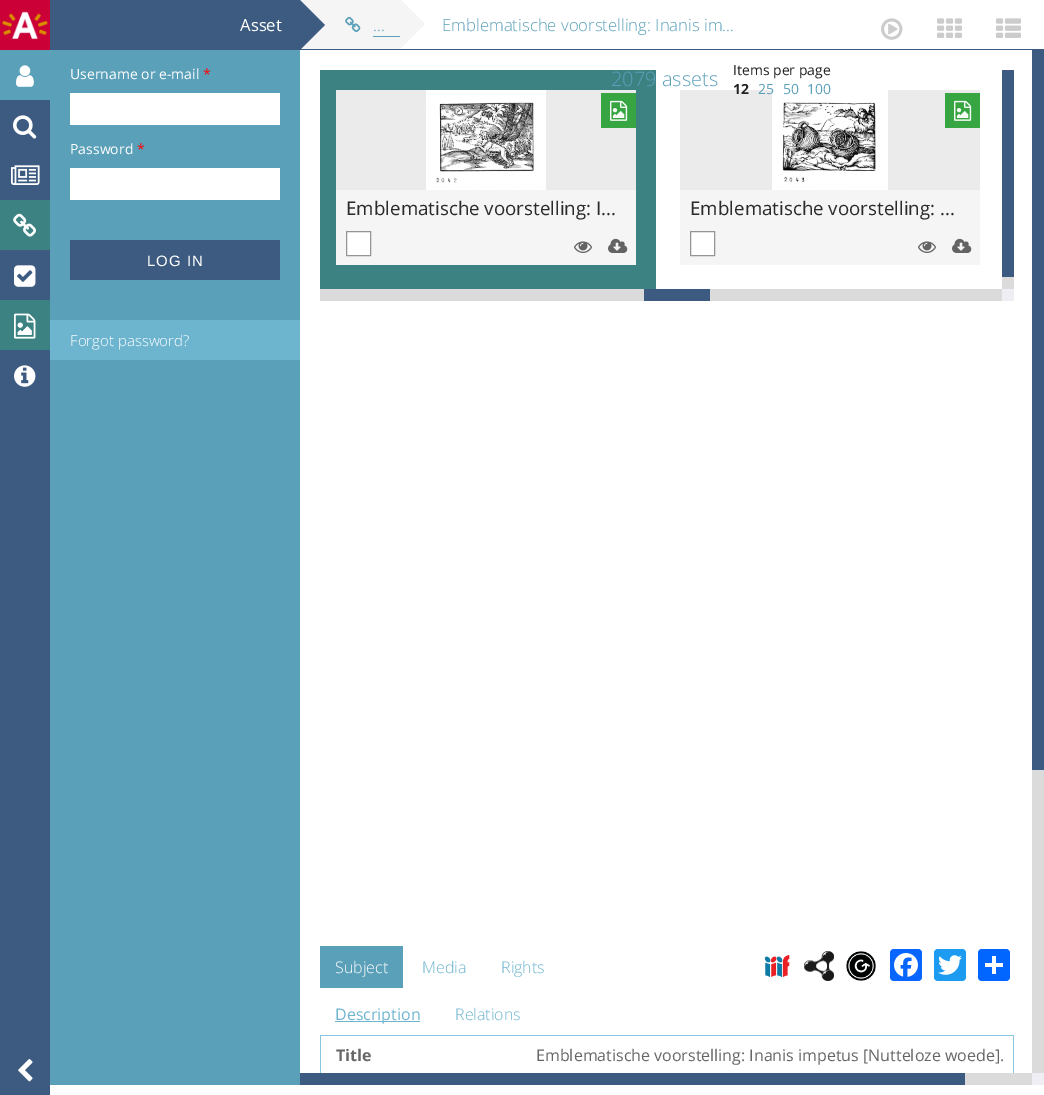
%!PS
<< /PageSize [1044 1095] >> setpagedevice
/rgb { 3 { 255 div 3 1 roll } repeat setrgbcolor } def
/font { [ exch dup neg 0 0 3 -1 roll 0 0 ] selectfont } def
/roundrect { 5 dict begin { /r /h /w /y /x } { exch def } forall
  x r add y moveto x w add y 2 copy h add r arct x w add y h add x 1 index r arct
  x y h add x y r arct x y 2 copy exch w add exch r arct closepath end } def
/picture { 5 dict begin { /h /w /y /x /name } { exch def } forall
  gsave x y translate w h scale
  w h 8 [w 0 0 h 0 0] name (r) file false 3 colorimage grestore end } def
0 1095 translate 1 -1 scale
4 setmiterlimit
255 255 255 rgb
0 0 1044 1095 rectfill
61 91 128 rgb
0 100 50 995 rectfill
(img/1.rgb) 0 0 50 50 picture
91 160 185 rgb
0 50 50 50 rectfill
(img/2.rgb) 16 65 18 22 picture
(img/3.rgb) 13 115 24 24 picture
(img/4.rgb) 11 165 29 20 picture
60 130 131 rgb
0 200 50 50 rectfill
(img/5.rgb) 13 213 23 24 picture
(img/6.rgb) 14 265 22 22 picture
0 300 50 50 rectfill
(img/7.rgb) 14 313 22 26 picture
(img/8.rgb) 14 365 22 22 picture
(img/9.rgb) 18 1059 15 23 picture
[
  [50 0 250 50 61 91 128]
  [300 49 744 1 61 91 128]
  [300 0 100 49 245 245 245]
] { aload pop rgb rectfill } forall
61 91 128 rgb
300 50 moveto 300 0 lineto 325 25 lineto closepath fill
(img/10.rgb) 345 16 16 16 picture
91 160 185 rgb
373 36 27 1 rectfill
245 245 245 rgb
400 49 moveto 400 -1 lineto 425 24 lineto closepath fill
(img/11.rgb) 881 18 22 22 picture
(img/12.rgb) 937 18 25 20 picture
(img/13.rgb) 996 18 25 20 picture
[
  [50 50 250 1035 91 160 185]
  [70 93 210 32 255 255 255]
  [70 168 210 32 255 255 255]
  [70 240 210 40 61 91 128]
  [50 320 250 40 109 181 207]
  [320 70 336 219 60 130 131]
  [336 190 300 75 245 245 245]
  [336 90 300 100 235 235 235]
] { aload pop rgb rectfill } forall
(img/14.rgb) 426 90 120 100 picture
55 166 66 rgb
601 93 35 35 rectfill
(img/15.rgb) 610 100 18 21 picture
255 255 255 rgb
346.5 231.5 moveto 370.5 231.5 lineto 370.5 255.5 lineto 346.5 255.5 lineto closepath gsave fill grestore
149 149 149 rgb
stroke
(img/16.rgb) 574 241 18 12 picture
(img/17.rgb) 608 238 20 15 picture
245 245 245 rgb
680 190 300 75 rectfill
235 235 235 rgb
680 90 300 100 rectfill
(img/18.rgb) 772 90 116 100 picture
55 166 66 rgb
945 93 35 35 rectfill
(img/15.rgb) 954 100 18 21 picture
255 255 255 rgb
690.5 231.5 moveto 714.5 231.5 lineto 714.5 255.5 lineto 690.5 255.5 lineto closepath gsave fill grestore
149 149 149 rgb
stroke
(img/16.rgb) 918 241 18 12 picture
(img/17.rgb) 952 238 20 15 picture
[
  [1002 277 12 12 219 219 219]
  [1002 70 12 207 61 91 128]
  [320 289 682 12 219 219 219]
  [644 289 66 12 61 91 128]
  [1002 289 12 12 238 238 244]
  [320 946 83 42 91 160 185]
] { aload pop rgb rectfill } forall
(img/19.rgb) 764 955 26 22 picture
(img/20.rgb) 804 951 30 30 picture
(img/21.rgb) 846 951 30 30 picture
8 102 255 rgb
890 949 32 32 4 roundrect fill
(img/22.rgb) 894 953 24 24 picture
29 155 240 rgb
934 949 32 32 4 roundrect fill
(img/23.rgb) 938 955 24 20 picture
1 102 255 rgb
978 949 32 32 4 roundrect fill
[
  [992 956 4 18 255 255 255]
  [985 963 18 4 255 255 255]
  [335 1021 85 1 109 181 207]
  [320 1035 694 1 134 198 222]
  [1013 1035 1 38 134 198 222]
  [320 1035 1 38 134 198 222]
  [1032 770 12 303 219 219 219]
  [1032 50 12 720 61 91 128]
  [965 1073 67 12 219 219 219]
  [300 1073 665 12 61 91 128]
  [1032 1073 12 12 238 238 244]
] { aload pop rgb rectfill } forall
/OpenSans-Regular 16.7 font
255 255 255 rgb
240 31 moveto (Asset) show
/OpenSans-Light 16.7 font
91 160 185 rgb
373 31 moveto (...) show
442 31 moveto (Emblematische voorstelling: Inanis im...) show
/OpenSans-Light 20 font
611 86 moveto (2079 assets) show
/OpenSans-Regular 14 font
34 34 34 rgb
733 75 moveto (Items per page) show
/OpenSans-Bold 14 font
733 94 moveto (12) show
/OpenSans-Regular 14 font
91 160 185 rgb
[
  [(25) 758 94]
  [(50) 783 94]
  [(100) 807 94]
] { aload pop moveto show } forall
255 255 255 rgb
70 79 moveto (Username or e-mail) show
255 0 0 rgb
203 79 moveto (*) show
255 255 255 rgb
70 154 moveto (Password) show
255 0 0 rgb
137 154 moveto (*) show
/LiberationSans-Regular 15 font
255 255 255 rgb
147 266 moveto 1 0 (LOG IN) ashow
/OpenSans-Light 15 font
70 346 moveto (Forgot password?) show
/OpenSans-Regular 18.75 font
43 43 43 rgb
346 215 moveto (Emblematische voorstelling: I...) show
690 215 moveto (Emblematische voorstelling: ...) show
/OpenSans-Light 16 font
255 255 255 rgb
335 973 moveto (Subject) show
109 181 207 rgb
422 973 moveto (Media) show
501 973 moveto (Rights) show
/OpenSans-Regular 16 font
335 1020 moveto (Description) show
/OpenSans-Light 16 font
455 1020 moveto (Relations) show
/OpenSans-Bold 16 font
102 102 102 rgb
336 1061 moveto (Title) show
/OpenSans-Regular 16 font
536 1061 moveto (Emblematische voorstelling: Inanis impetus [Nutteloze woede].) show
showpage
